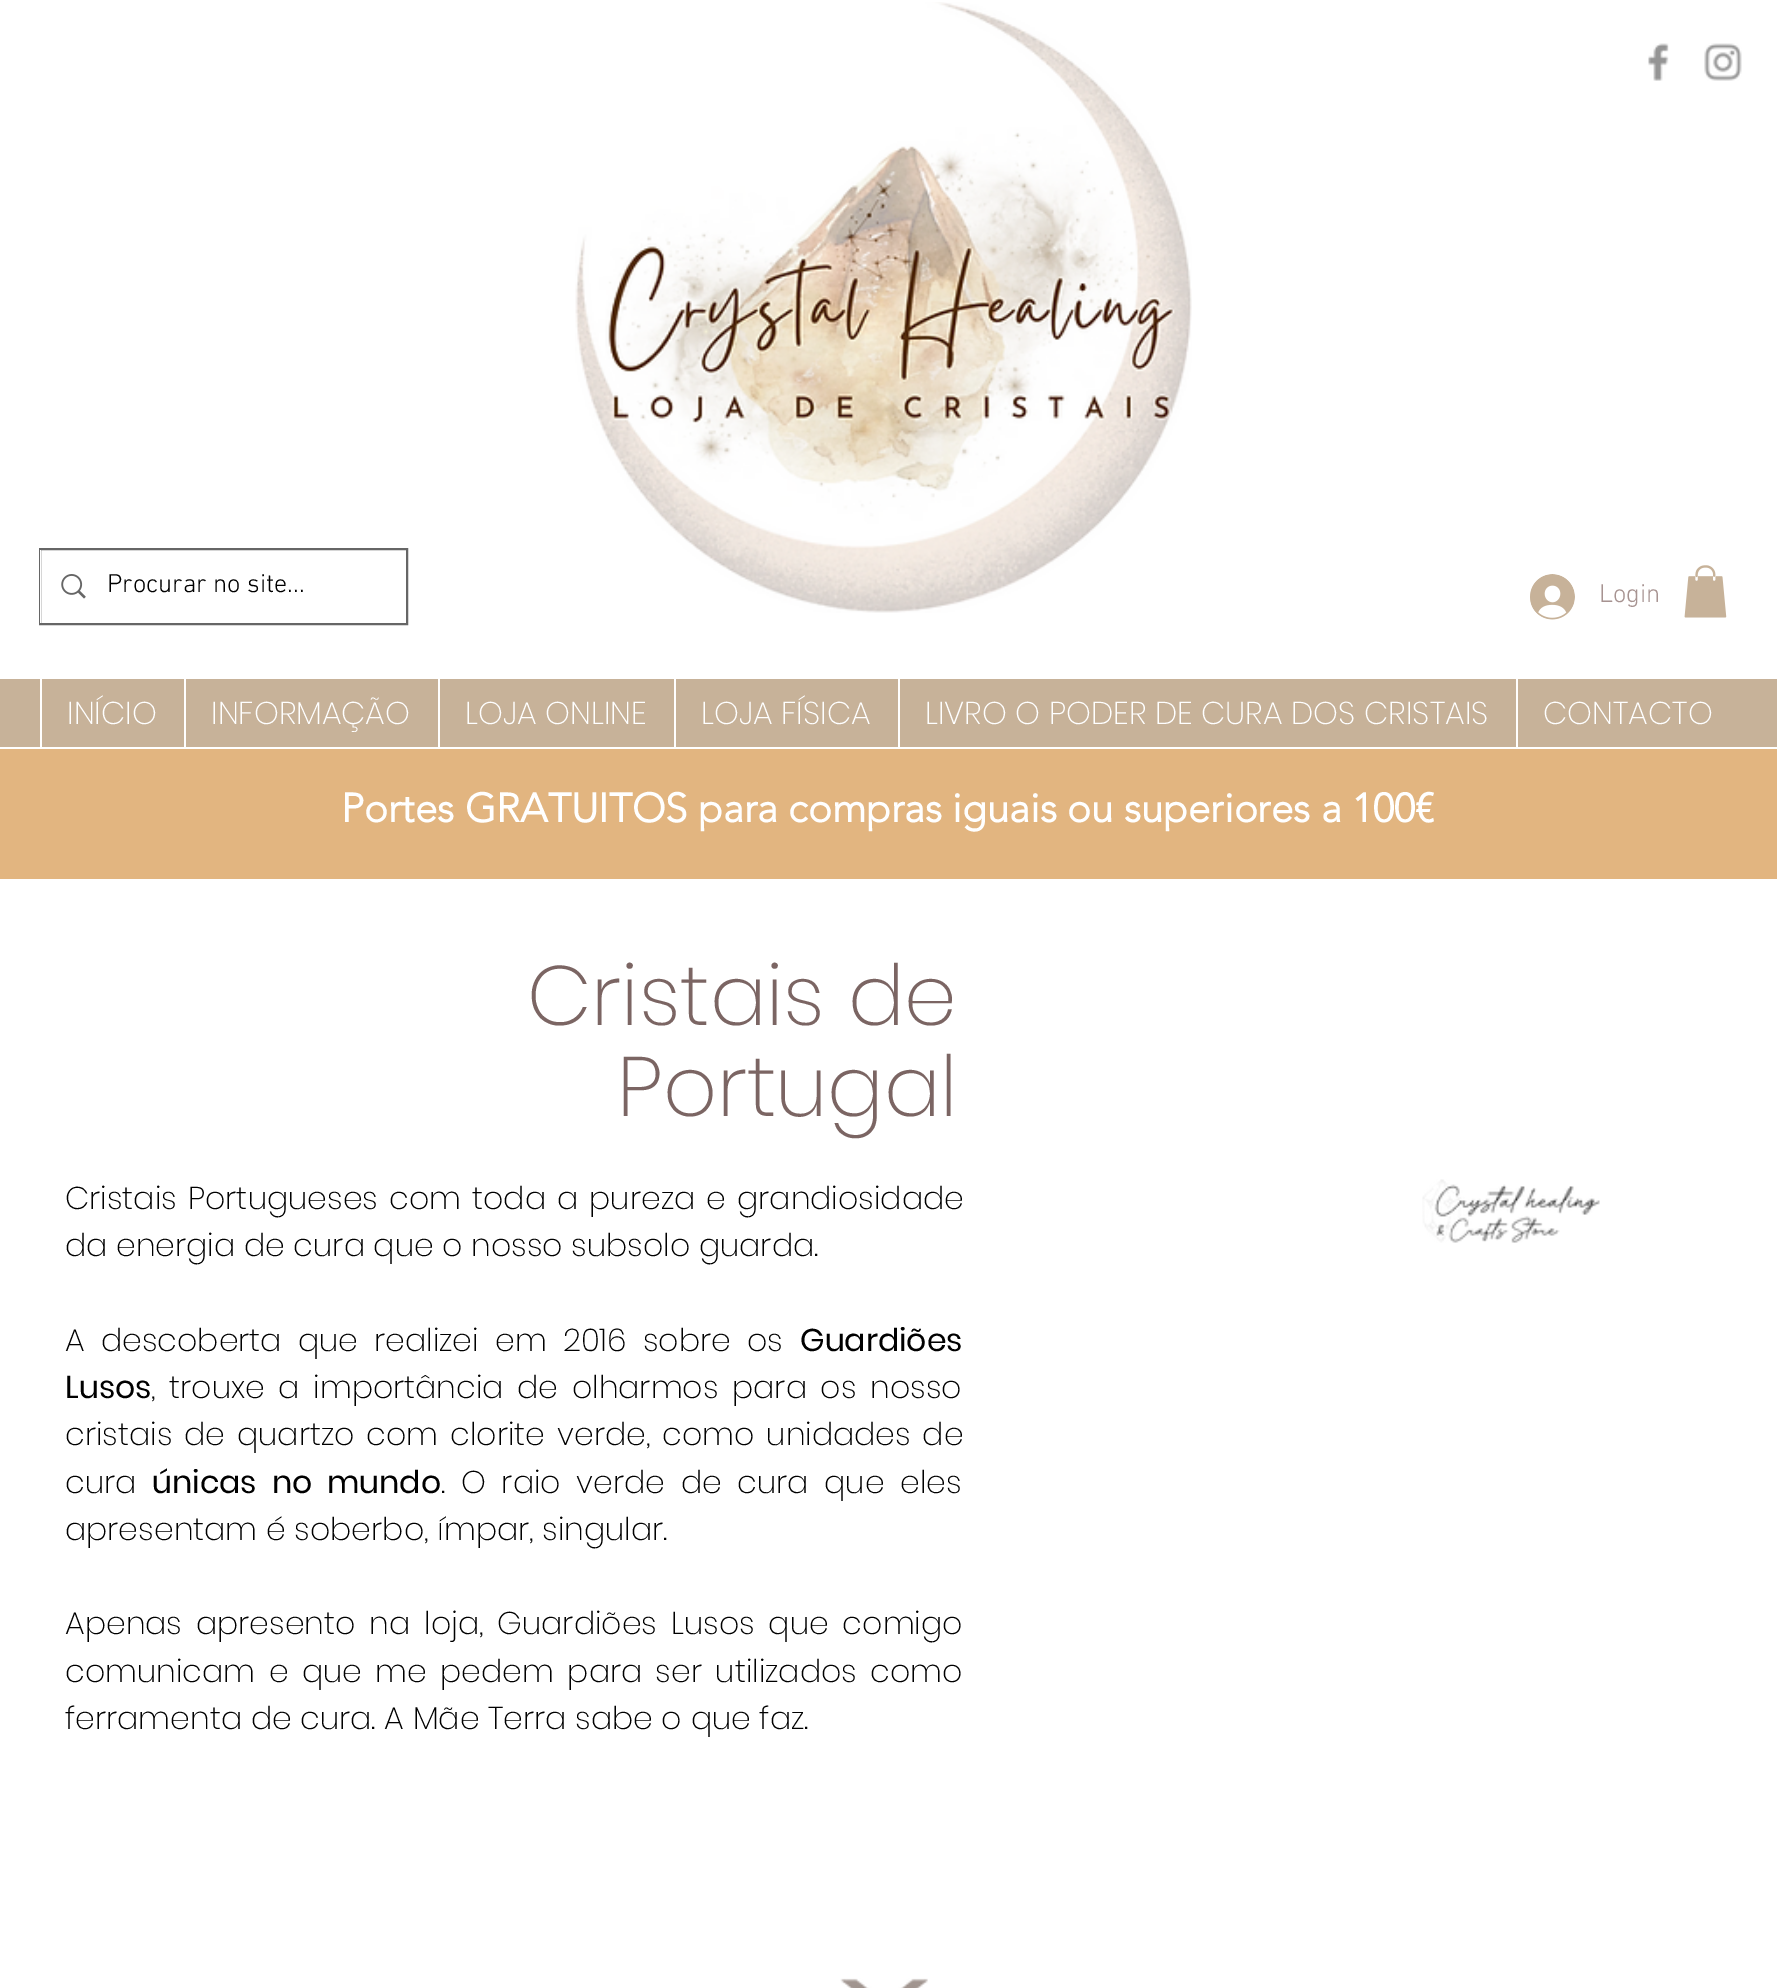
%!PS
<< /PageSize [1777 1988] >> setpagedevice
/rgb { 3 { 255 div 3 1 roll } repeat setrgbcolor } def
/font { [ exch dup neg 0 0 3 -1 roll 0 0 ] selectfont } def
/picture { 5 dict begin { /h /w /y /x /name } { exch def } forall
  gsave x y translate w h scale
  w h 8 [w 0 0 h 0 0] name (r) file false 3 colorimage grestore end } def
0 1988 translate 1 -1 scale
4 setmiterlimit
255 255 255 rgb
0 0 1777 1988 rectfill
(img/1.rgb) 575 2 617 611 picture
(img/2.rgb) 1648 43 21 38 picture
(img/3.rgb) 1704 43 38 38 picture
102 102 102 rgb
2 setlinewidth
40 549 367 75 rectstroke
255 255 255 rgb
40 550 1 73 rectfill
(img/4.rgb) 61 574 25 25 picture
(img/5.rgb) 1530 574 45 46 picture
(img/6.rgb) 1684 565 43 53 picture
[
  [0 679 1777 68 199 178 153]
  [40 679 2 68 255 255 255]
  [184 679 2 68 255 255 255]
  [438 679 2 68 255 255 255]
  [674 679 2 68 255 255 255]
  [898 679 2 68 255 255 255]
  [1516 679 2 68 255 255 255]
  [0 749 1777 130 226 181 128]
] { aload pop rgb rectfill } forall
(img/7.rgb) 1422 1179 178 64 picture
(img/8.rgb) 840 1978 88 10 picture
/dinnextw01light-Light 26.25 font
0 0 0 rgb
107 592 moveto (Procurar no site...) show
167 147 145 rgb
1599 602 moveto (Login) show
/Poppins-ExtraLight 31.5 font
255 255 255 rgb
[
  [(INÍCIO) 67 724]
  [(INFORMAÇÃO) 211 724]
  [(LOJA ONLINE) 465 724]
  [(LOJA FÍSICA) 701 724]
  [(LIVRO O PODER DE CURA DOS CRISTAIS) 925 724]
  [(CONTACTO) 1543 724]
] { aload pop moveto show } forall
/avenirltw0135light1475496-Bold 40.25 font
341 822 moveto (Portes GRATUITOS para compras iguais ou superiores a 100€) show
/Poppins-ExtraLight 84 font
123 101 99 rgb
527 1025 moveto (Cristais de) show
617 1116 moveto (Portugal) show
/Poppins-ExtraLight 31.5 font
0 0 0 rgb
65 1209 moveto 2.5 0 32 (Cristais Portugueses com toda a pureza e grandiosidade) widthshow
65 1256 moveto (da energia de cura que o nosso subsolo guarda.) show
65 1351 moveto 7.5 0 32 (A descoberta que realizei em 2016 sobre os) widthshow
/Poppins-Regular 31.5 font
800 1351 moveto (Guardiões) show
65 1398 moveto (Lusos) show
/Poppins-ExtraLight 31.5 font
151 1398 moveto 5 0 32 (, trouxe a importância de olharmos para os nosso) widthshow
65 1445 moveto 3.25 0 32 (cristais de quartzo com clorite verde, como unidades de) widthshow
65 1493 moveto (cura) show
/Poppins-Regular 31.5 font
152 1493 moveto 7 0 32 (únicas no mundo) widthshow
/Poppins-ExtraLight 31.5 font
441 1493 moveto 7 0 32 (. O raio verde de cura que eles) widthshow
65 1540 moveto (apresentam é soberbo, ímpar, singular.) show
65 1634 moveto 5.25 0 32 (Apenas apresento na loja, Guardiões Lusos que comigo) widthshow
65 1682 moveto 4.75 0 32 (comunicam e que me pedem para ser utilizados como) widthshow
65 1729 moveto (ferramenta de cura. A Mãe Terra sabe o que faz.) show
showpage
